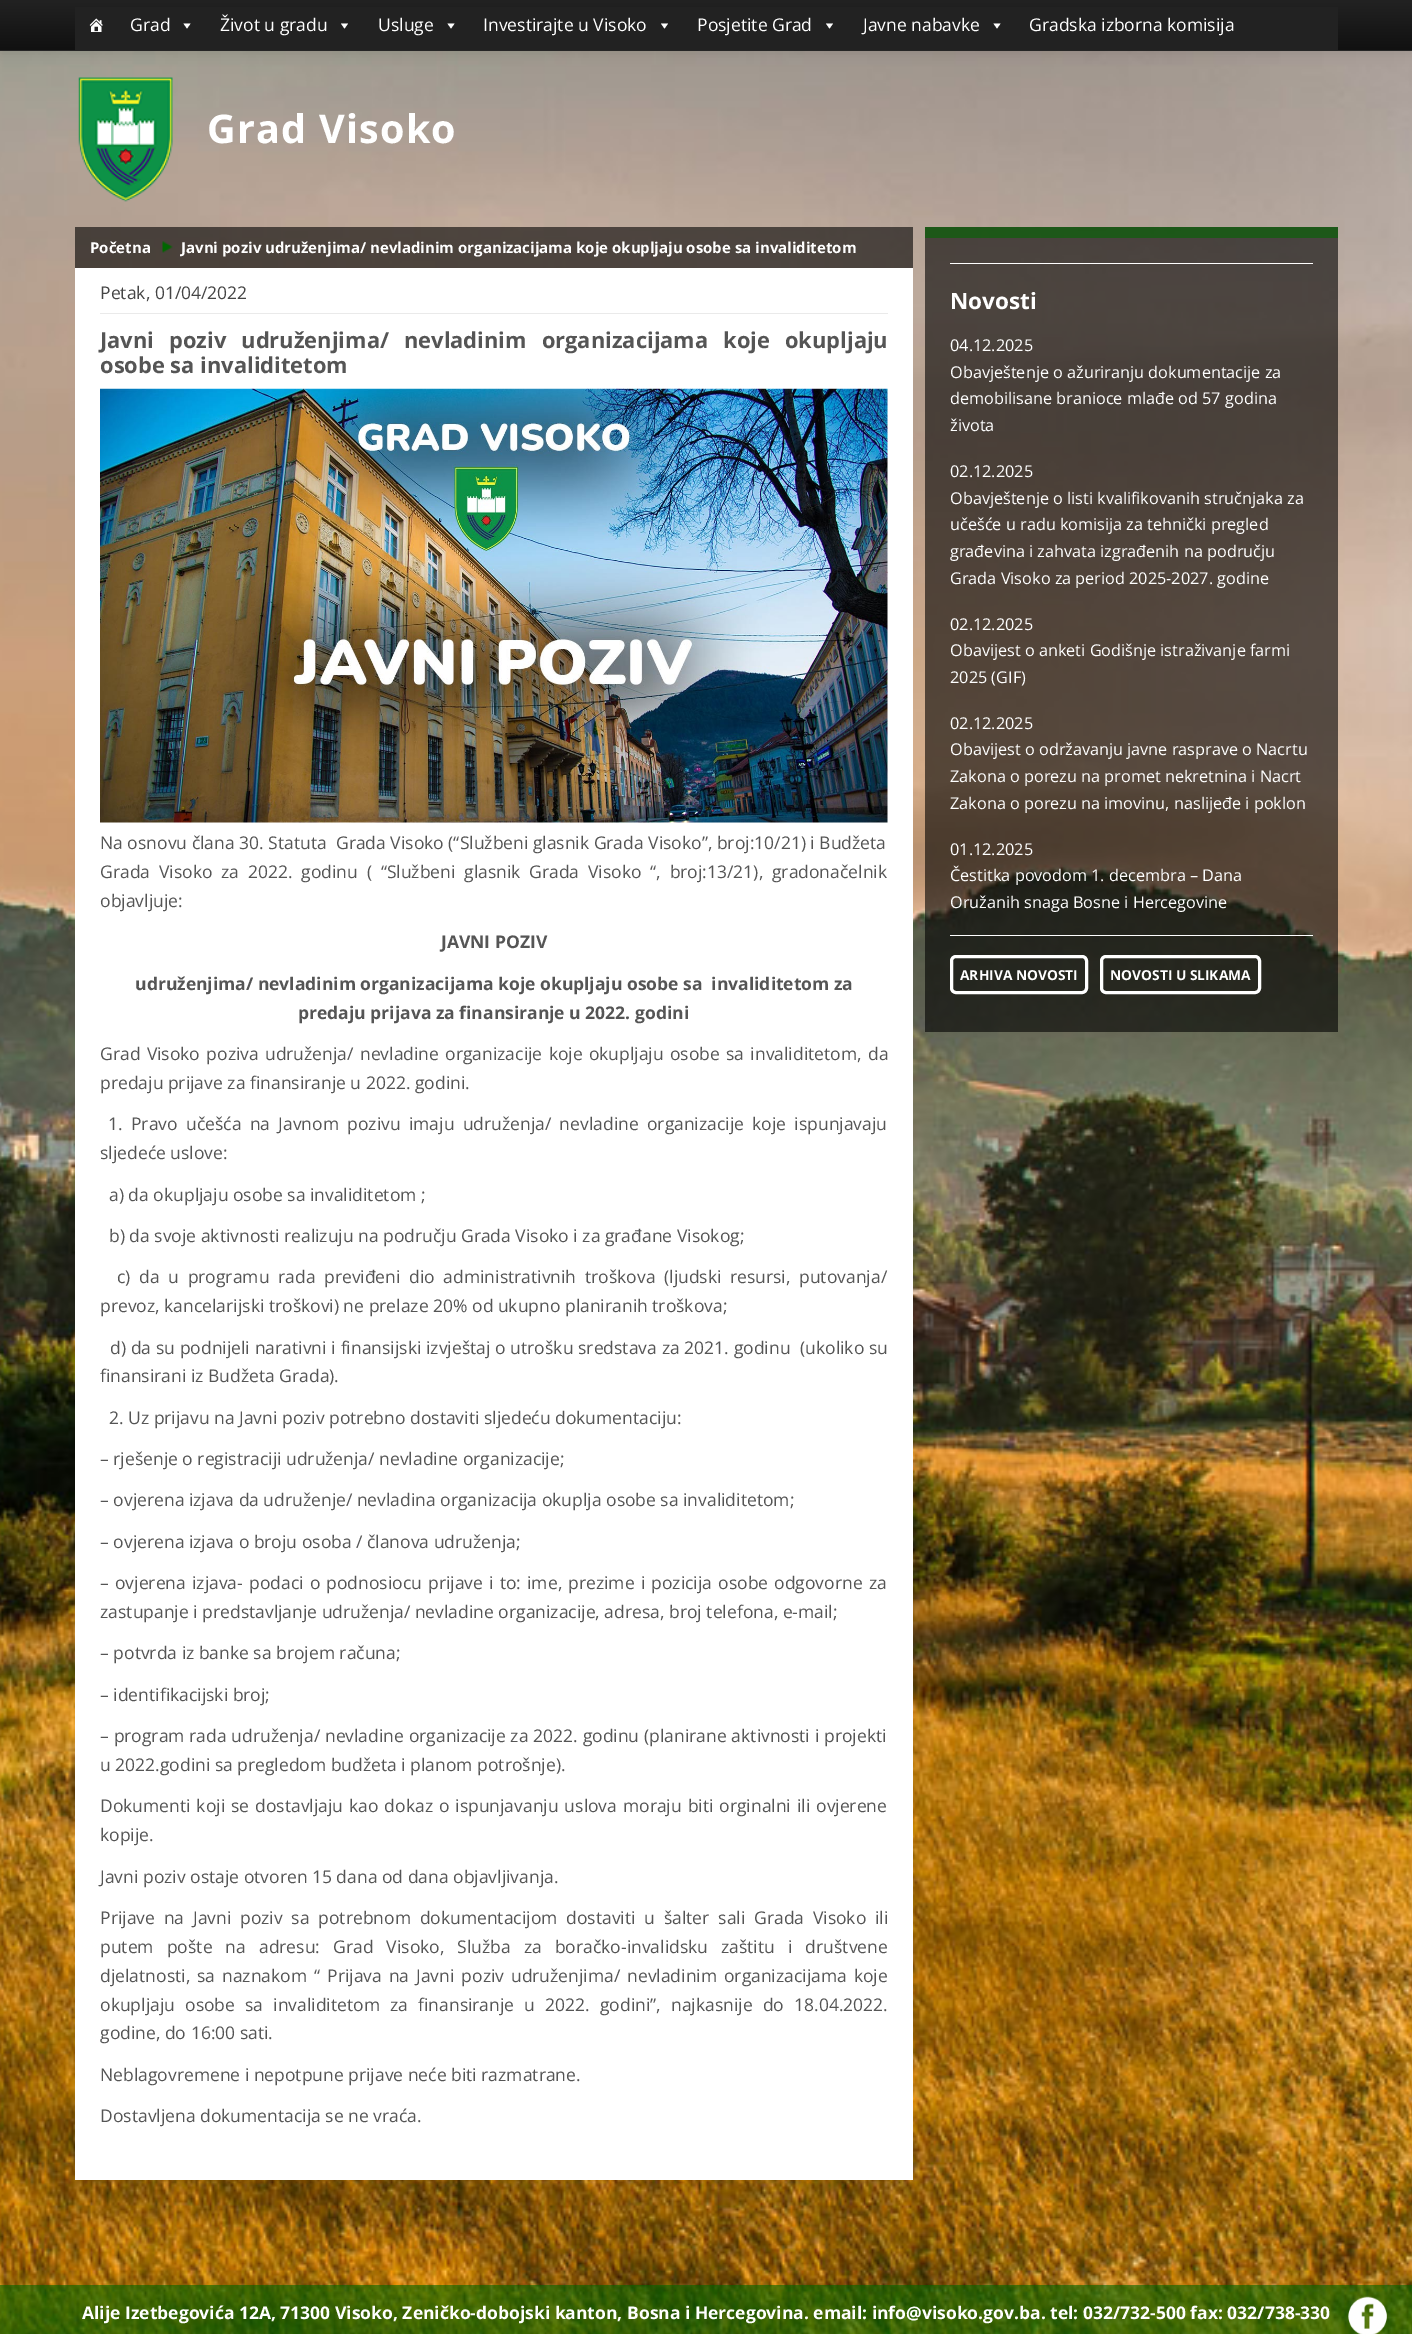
%!PS
<< /PageSize [1412 2334] /PageUsesTransparency true >> setpagedevice
/rgb { 3 { 255 div 3 1 roll } repeat setrgbcolor } def
/font { [ exch dup neg 0 0 3 -1 roll 0 0 ] selectfont } def
/alpha { dup .setfillconstantalpha .setstrokeconstantalpha } def
/roundrect { 5 dict begin { /r /h /w /y /x } { exch def } forall
  x r add y moveto x w add y 2 copy h add r arct x w add y h add x 1 index r arct
  x y h add x y r arct x y 2 copy exch w add exch r arct closepath end } def
/shadow { 12 dict begin { /a /b /q /h /w /y /x } { exch def } forall gsave /was 0 def
  9 -2 -9 { dup b mul 4 div /e exch def 1 sub .425 mul 2.718 exch exp 1 add a .99 .min exch div /now exch def
    1 1 now sub 1 was sub div sub alpha /was now def
    w h .min e 2 mul add 0 gt { x e sub y e sub w e 2 mul add h e 2 mul add
      q e add b .6 mul add w h .min 2 div e add .min 0 .max roundrect fill } if } for grestore end } def
/picture { 5 dict begin { /h /w /y /x /name } { exch def } forall
  gsave x y translate w h scale
  w h 8 [w 0 0 h 0 0] name (r) file false 3 colorimage grestore end } def
0 .pushpdf14devicefilter
0 2334 translate 1 -1 scale
4 setmiterlimit
255 255 255 rgb
0 0 1412 2334 rectfill
(img/1.rgb) 0 51 1412 2283 picture
0 0 0 rgb
0 1 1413 52 0 6 0.1 shadow
gsave 0 0 moveto 1412 0 lineto 1412 50 lineto 0 50 lineto closepath clip newpath
<< /ShadingType 2 /ColorSpace /DeviceRGB /Coords [706 0 706 50] /Extend [true true] /Function << /FunctionType 2 /Domain [0 1] /C0 [0.133 0.133 0.133] /C1 [0.067 0.067 0.067] /N 1 >> >> shfill grestore
37 37 37 rgb
0 50 1412 1 rectfill
34 34 34 rgb
75 7 1263 43 rectfill
(img/2.rgb) 89 18 14 14 picture
255 255 255 rgb
190.5 23.5 moveto 187 28.5 lineto 183.5 23.5 lineto closepath fill
348 23.5 moveto 344.5 28.5 lineto 341 23.5 lineto closepath fill
454.5 23.5 moveto 451 28.5 lineto 447.5 23.5 lineto closepath fill
668 23.5 moveto 664.5 28.5 lineto 661 23.5 lineto closepath fill
833 23.5 moveto 829.5 28.5 lineto 826 23.5 lineto closepath fill
1000.5 23.5 moveto 997 28.5 lineto 993.5 23.5 lineto closepath fill
(img/3.rgb) 78 77 95 125 picture
0.6 alpha
0 0 0 rgb
75 227 838 41 rectfill
1 alpha
(img/4.rgb) 162 241 11 12 picture
255 255 255 rgb
75 268 838 1912 rectfill
234 234 234 rgb
100 313 788 1 rectfill
(img/5.rgb) 100 388 788 435 picture
0.6 alpha
[
  [925 227 413 805 0 0 0]
  [925 227 413 11 0 102 0]
] { aload pop rgb rectfill } forall
1 alpha
[
  [950 263 363 1 255 255 255]
  [950 935 363 1 255 255 255]
] { aload pop rgb rectfill } forall
3 setlinewidth
951.5 956.5 135 36 4.5 roundrect stroke
1101.5 956.5 158 36 4.5 roundrect stroke
0.6 alpha
0 102 0 rgb
0 2285 1412 49 rectfill
1 alpha
(img/6.rgb) 1348 2296 39 38 picture
/OpenSans-Regular 17.5 font
255 255 255 rgb
[
  [(Grad) 130 31]
  [(Život u gradu) 220 31]
  [(Usluge) 378 31]
  [(Investirajte u Visoko) 483 31]
  [(Posjetite Grad) 697 31]
  [(Javne nabavke) 863 31]
  [(Gradska izborna komisija) 1029 31]
] { aload pop moveto show } forall
/OpenSans-Bold 39.5 font
207 143 moveto 1.25 0 (Grad Visoko) ashow
/OpenSans-Bold 15 font
90 253 moveto (Početna) show
181 253 moveto (Javni poziv udruženjima/ nevladinim organizacijama koje okupljaju osobe sa invaliditetom) show
/OpenSans-Regular 17.5 font
69 69 69 rgb
100 299 moveto (Petak, 01/04/2022) show
/OpenSans-Bold 21.9 font
85 85 85 rgb
100 348 moveto 9.25 0 32 (Javni poziv udruženjima/ nevladinim organizacijama koje okupljaju) widthshow
100 373 moveto (osobe sa invaliditetom) show
/OpenSans-Regular 17.5 font
100 849 moveto (Na osnovu člana 30. Statuta  Grada Visoko \(“Službeni glasnik Grada Visoko”, broj:10/21\) i Budžeta) show
100 878 moveto 4.25 0 32 (Grada Visoko za 2022. godinu \( “Službeni glasnik Grada Visoko “, broj:13/21\), gradonačelnik) widthshow
100 907 moveto (objavljuje:) show
/OpenSans-Bold 17.5 font
[
  [(JAVNI POZIV) 441 948]
  [(udruženjima/ nevladinim organizacijama koje okupljaju osobe sa  invaliditetom za) 135 990]
  [(predaju prijava za finansiranje u 2022. godini) 298 1019]
] { aload pop moveto show } forall
/OpenSans-Regular 17.5 font
100 1060 moveto 1.75 0 32 (Grad Visoko poziva udruženja/ nevladine organizacije koje okupljaju osobe sa invaliditetom, da) widthshow
100 1089 moveto (predaju prijave za finansiranje u 2022. godini.) show
108 1130 moveto 3.75 0 32 (1. Pravo učešća na Javnom pozivu imaju udruženja/ nevladine organizacije koje ispunjavaju) widthshow
[
  [(sljedeće uslove:) 100 1159]
  [(a\) da okupljaju osobe sa invaliditetom ;) 109 1201]
  [(b\) da svoje aktivnosti realizuju na području Grada Visoko i za građane Visokog;) 109 1242]
] { aload pop moveto show } forall
117 1283 moveto 4.1 0 32 (c\) da u programu rada previđeni dio administrativnih troškova \(ljudski resursi, putovanja/) widthshow
100 1312 moveto (prevoz, kancelarijski troškovi\) ne prelaze 20% od ukupno planiranih troškova;) show
110 1354 moveto 0.25 0 32 (d\) da su podnijeli narativni i finansijski izvještaj o utrošku sredstava za 2021. godinu  \(ukoliko su) widthshow
[
  [(finansirani iz Budžeta Grada\).) 100 1382]
  [(2. Uz prijavu na Javni poziv potrebno dostaviti sljedeću dokumentaciju:) 109 1424]
  [(– rješenje o registraciji udruženja/ nevladine organizacije;) 100 1465]
  [(– ovjerena izjava da udruženje/ nevladina organizacija okuplja osobe sa invaliditetom;) 100 1506]
  [(– ovjerena izjava o broju osoba / članova udruženja;) 100 1548]
] { aload pop moveto show } forall
100 1589 moveto 1.6 0 32 (– ovjerena izjava- podaci o podnosiocu prijave i to: ime, prezime i pozicija osobe odgovorne za) widthshow
[
  [(zastupanje i predstavljanje udruženja/ nevladine organizacije, adresa, broj telefona, e-mail;) 100 1618]
  [(– potvrda iz banke sa brojem računa;) 100 1659]
  [(– identifikacijski broj;) 100 1701]
] { aload pop moveto show } forall
100 1742 moveto 0.25 0 32 (– program rada udruženja/ nevladine organizacije za 2022. godinu \(planirane aktivnosti i projekti) widthshow
100 1771 moveto (u 2022.godini sa pregledom budžeta i planom potrošnje\).) show
100 1812 moveto 1.4 0 32 (Dokumenti koji se dostavljaju kao dokaz o ispunjavanju uslova moraju biti orginalni ili ovjerene) widthshow
100 1841 moveto (kopije.) show
100 1883 moveto (Javni poziv ostaje otvoren 15 dana od dana objavljivanja.) show
100 1924 moveto 4.25 0 32 (Prijave na Javni poziv sa potrebnom dokumentacijom dostaviti u šalter sali Grada Visoko ili) widthshow
100 1953 moveto 8.5 0 32 (putem pošte na adresu: Grad Visoko, Služba za boračko-invalidsku zaštitu i društvene) widthshow
100 1982 moveto 2.4 0 32 (djelatnosti, sa naznakom “ Prijava na Javni poziv udruženjima/ nevladinim organizacijama koje) widthshow
100 2011 moveto 5.6 0 32 (okupljaju osobe sa invaliditetom za finansiranje u 2022. godini”, najkasnije do 18.04.2022.) widthshow
[
  [(godine, do 16:00 sati.) 100 2039]
  [(Neblagovremene i nepotpune prijave neće biti razmatrane.) 100 2081]
  [(Dostavljena dokumentacija se ne vraća.) 100 2122]
] { aload pop moveto show } forall
/OpenSans-Bold 22.5 font
255 255 255 rgb
950 309 moveto (Novosti) show
/OpenSans-Regular 16.25 font
[
  [(04.12.2025) 950 351]
  [(Obavještenje o ažuriranju dokumentacije za) 950 378]
  [(demobilisane branioce mlađe od 57 godina) 950 404]
  [(života) 950 431]
  [(02.12.2025) 950 477]
  [(Obavještenje o listi kvalifikovanih stručnjaka za) 950 504]
  [(učešće u radu komisija za tehnički pregled) 950 530]
  [(građevina i zahvata izgrađenih na području) 950 557]
  [(Grada Visoko za period 2025-2027. godine) 950 584]
  [(02.12.2025) 950 630]
  [(Obavijest o anketi Godišnje istraživanje farmi) 950 656]
  [(2025 \(GIF\)) 950 683]
  [(02.12.2025) 950 729]
  [(Obavijest o održavanju javne rasprave o Nacrtu) 950 755]
  [(Zakona o porezu na promet nekretnina i Nacrt) 950 782]
  [(Zakona o porezu na imovinu, naslijeđe i poklon) 950 809]
  [(01.12.2025) 950 855]
  [(Čestitka povodom 1. decembra – Dana) 950 881]
  [(Oružanih snaga Bosne i Hercegovine) 950 908]
] { aload pop moveto show } forall
/OpenSans-Bold 13.75 font
960 980 moveto (ARHIVA NOVOSTI) show
1110 980 moveto (NOVOSTI U SLIKAMA) show
/OpenSans-Bold 17.5 font
82 2319 moveto (Alije Izetbegovića 12A, 71300 Visoko, Zeničko-dobojski kanton, Bosna i Hercegovina. email: info@visoko.gov.ba. tel: 032/732-500 fax: 032/738-330) show
.poppdf14devicefilter showpage
